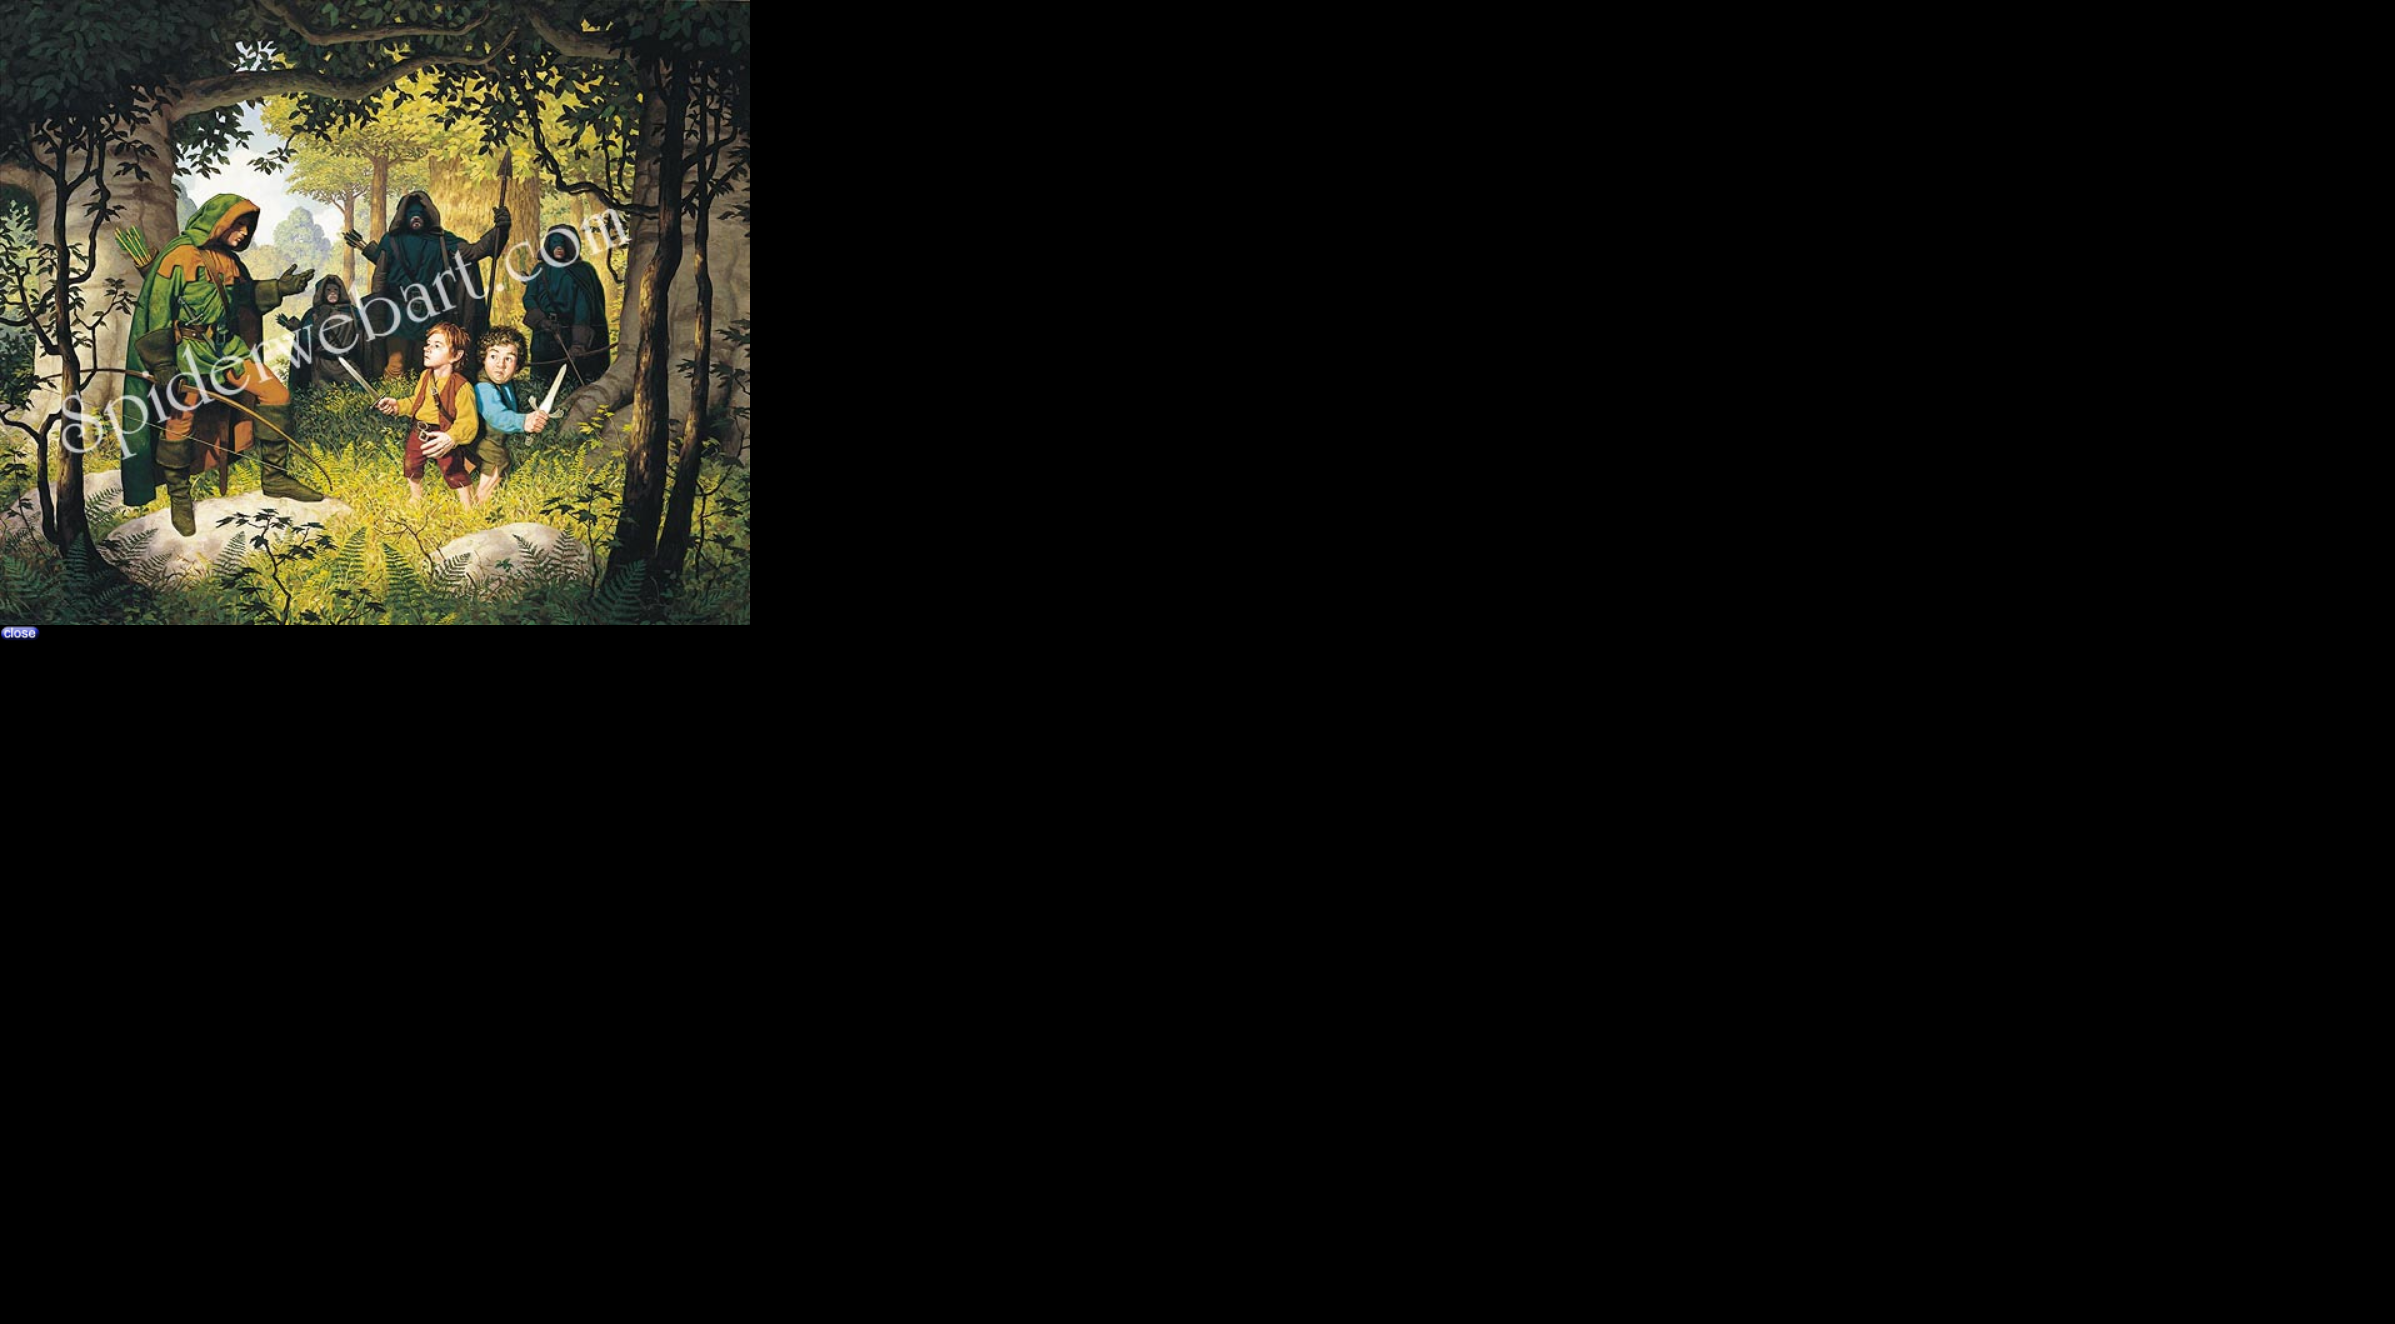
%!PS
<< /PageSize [2395 1324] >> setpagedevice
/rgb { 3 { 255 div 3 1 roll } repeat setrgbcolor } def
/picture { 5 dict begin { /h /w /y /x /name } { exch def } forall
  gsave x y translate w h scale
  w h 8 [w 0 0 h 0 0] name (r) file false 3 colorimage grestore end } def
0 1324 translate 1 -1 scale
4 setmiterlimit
0 0 0 rgb
0 0 2395 1324 rectfill
(img/1.rgb) 0 0 750 625 picture
(img/2.rgb) 1 626 39 15 picture
showpage
